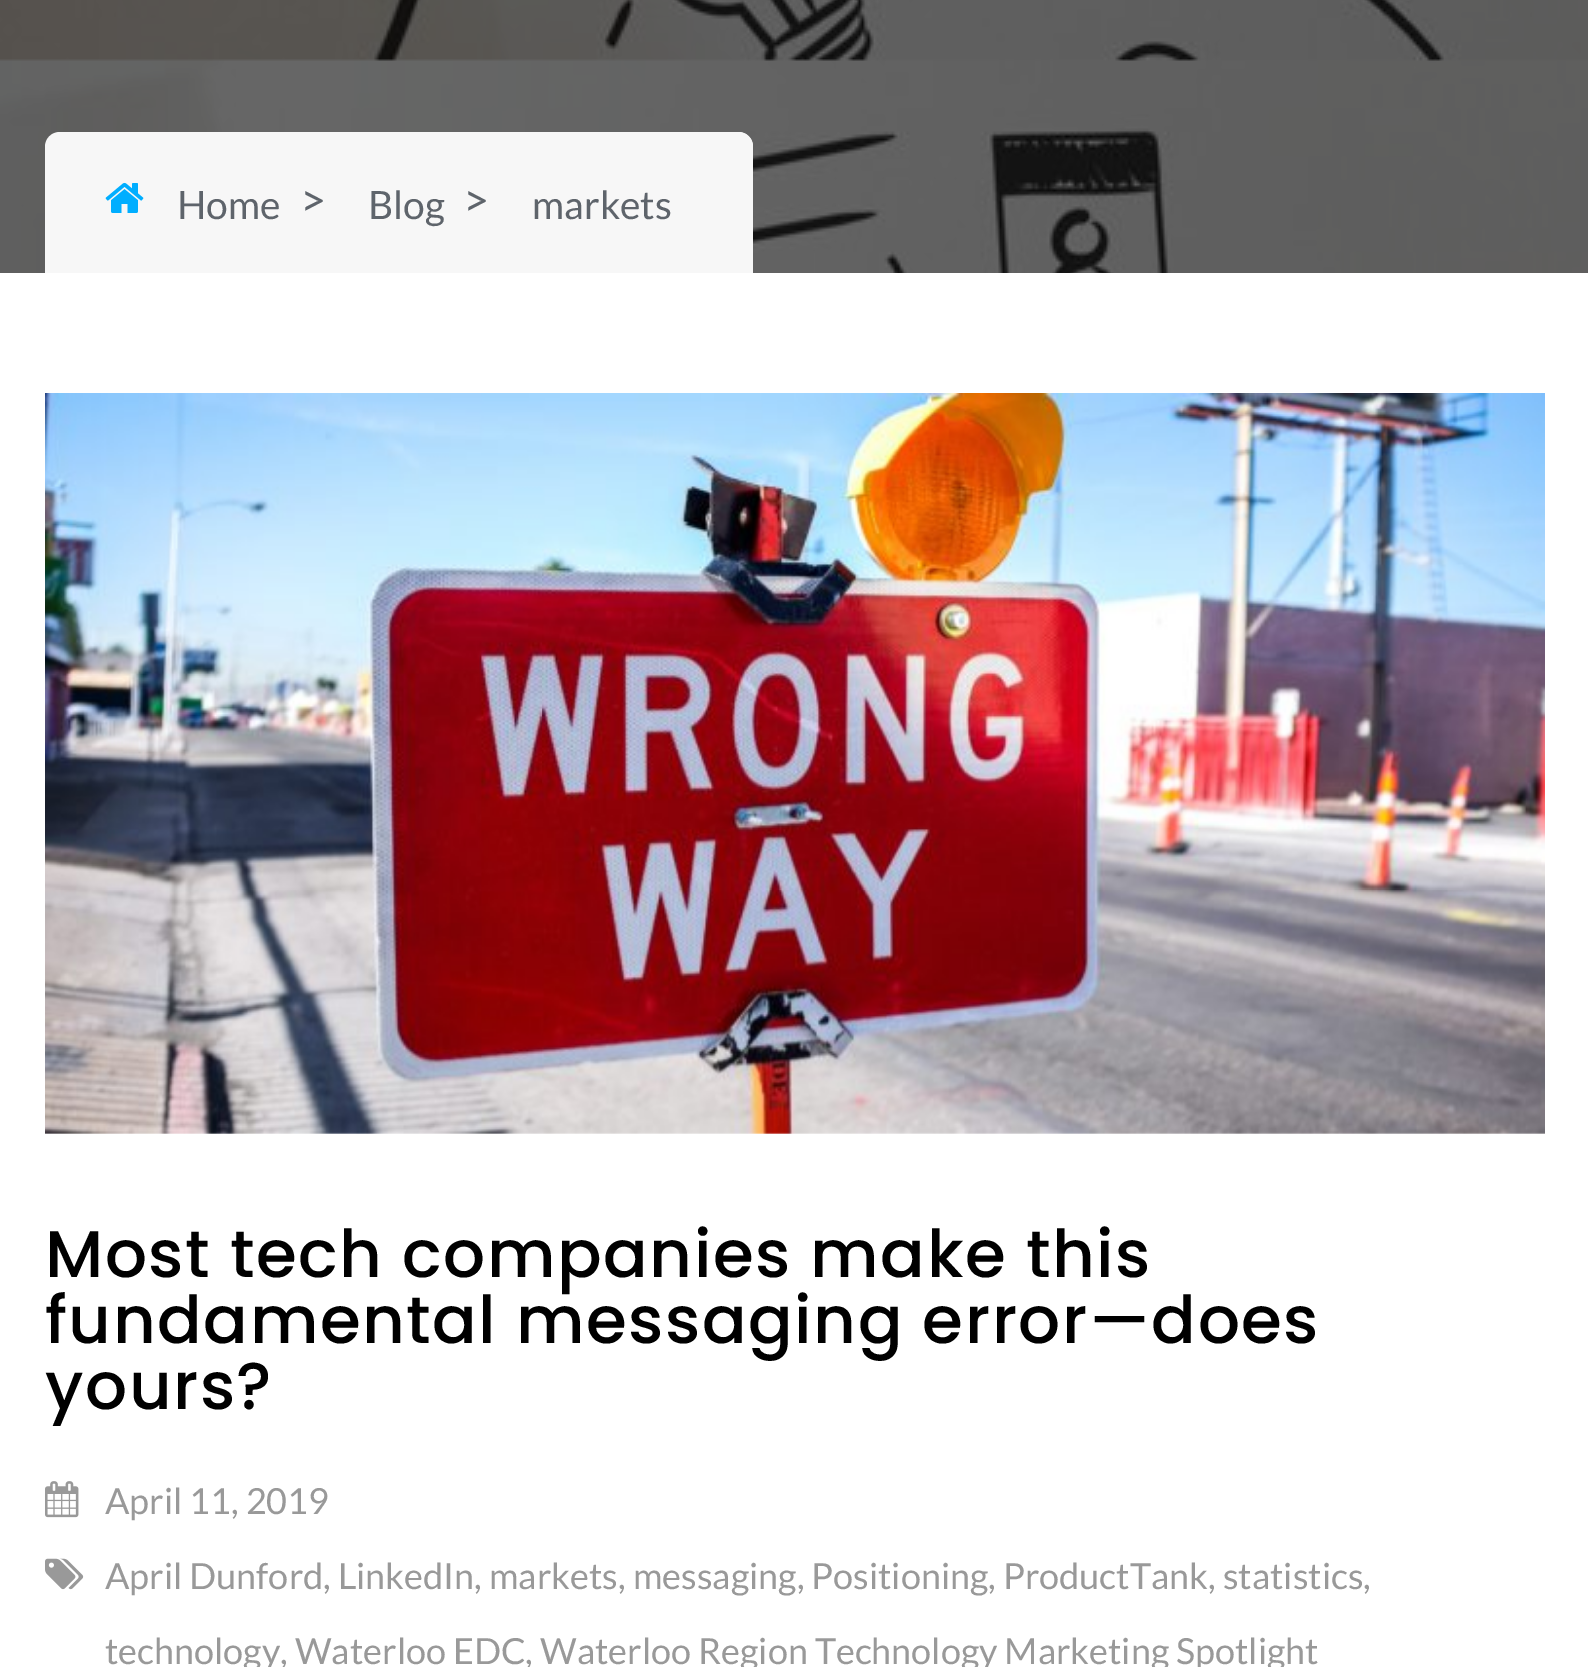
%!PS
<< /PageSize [1588 1667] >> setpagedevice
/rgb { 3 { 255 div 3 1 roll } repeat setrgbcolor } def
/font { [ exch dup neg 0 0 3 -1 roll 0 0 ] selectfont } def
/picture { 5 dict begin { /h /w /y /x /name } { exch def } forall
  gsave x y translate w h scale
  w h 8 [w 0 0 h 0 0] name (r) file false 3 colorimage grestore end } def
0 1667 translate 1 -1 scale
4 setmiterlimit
255 255 255 rgb
0 0 1588 1667 rectfill
(img/1.rgb) 0 0 1588 273 picture
247 247 247 rgb
60 132 moveto 738 132 lineto 746.5 132 753 138.5 753 147 curveto 753 273 lineto 45 273 lineto 45 147 lineto 45 138.5 51.5 132 60 132 curveto closepath fill
90 132 moveto 738 132 lineto 746.5 132 753 138.5 753 147 curveto 753 273 lineto 75 273 lineto 75 147 lineto 75 138.5 81.5 132 90 132 curveto closepath fill
(img/2.rgb) 105 182 39 31 picture
(img/3.rgb) 45 393 1500 741 picture
(img/4.rgb) 45 1481 34 37 picture
(img/5.rgb) 45 1558 39 32 picture
/Lato-Regular 39 font
94 100 107 rgb
177 219 moveto (Home) show
/Lato-Regular 45 font
300 216 moveto (>) show
/Lato-Regular 39 font
368 219 moveto (Blog) show
/Lato-Regular 45 font
463 216 moveto (>) show
/Lato-Regular 39 font
532 219 moveto (markets) show
/Poppins-Medium 66 font
0 0 0 rgb
45 1277 moveto 1.5 0 (Most tech companies make this) ashow
45 1343 moveto 1.5 0 (fundamental messaging error—does) ashow
45 1409 moveto 1.5 0 (yours?) ashow
/Lato-Regular 36 font
153 153 153 rgb
[
  [(April 11, 2019) 105 1514]
  [(April Dunford, LinkedIn, markets, messaging, Positioning, ProductTank, statistics,) 105 1589]
  [(technology, Waterloo EDC, Waterloo Region Technology Marketing Spotlight) 105 1664]
] { aload pop moveto show } forall
showpage
